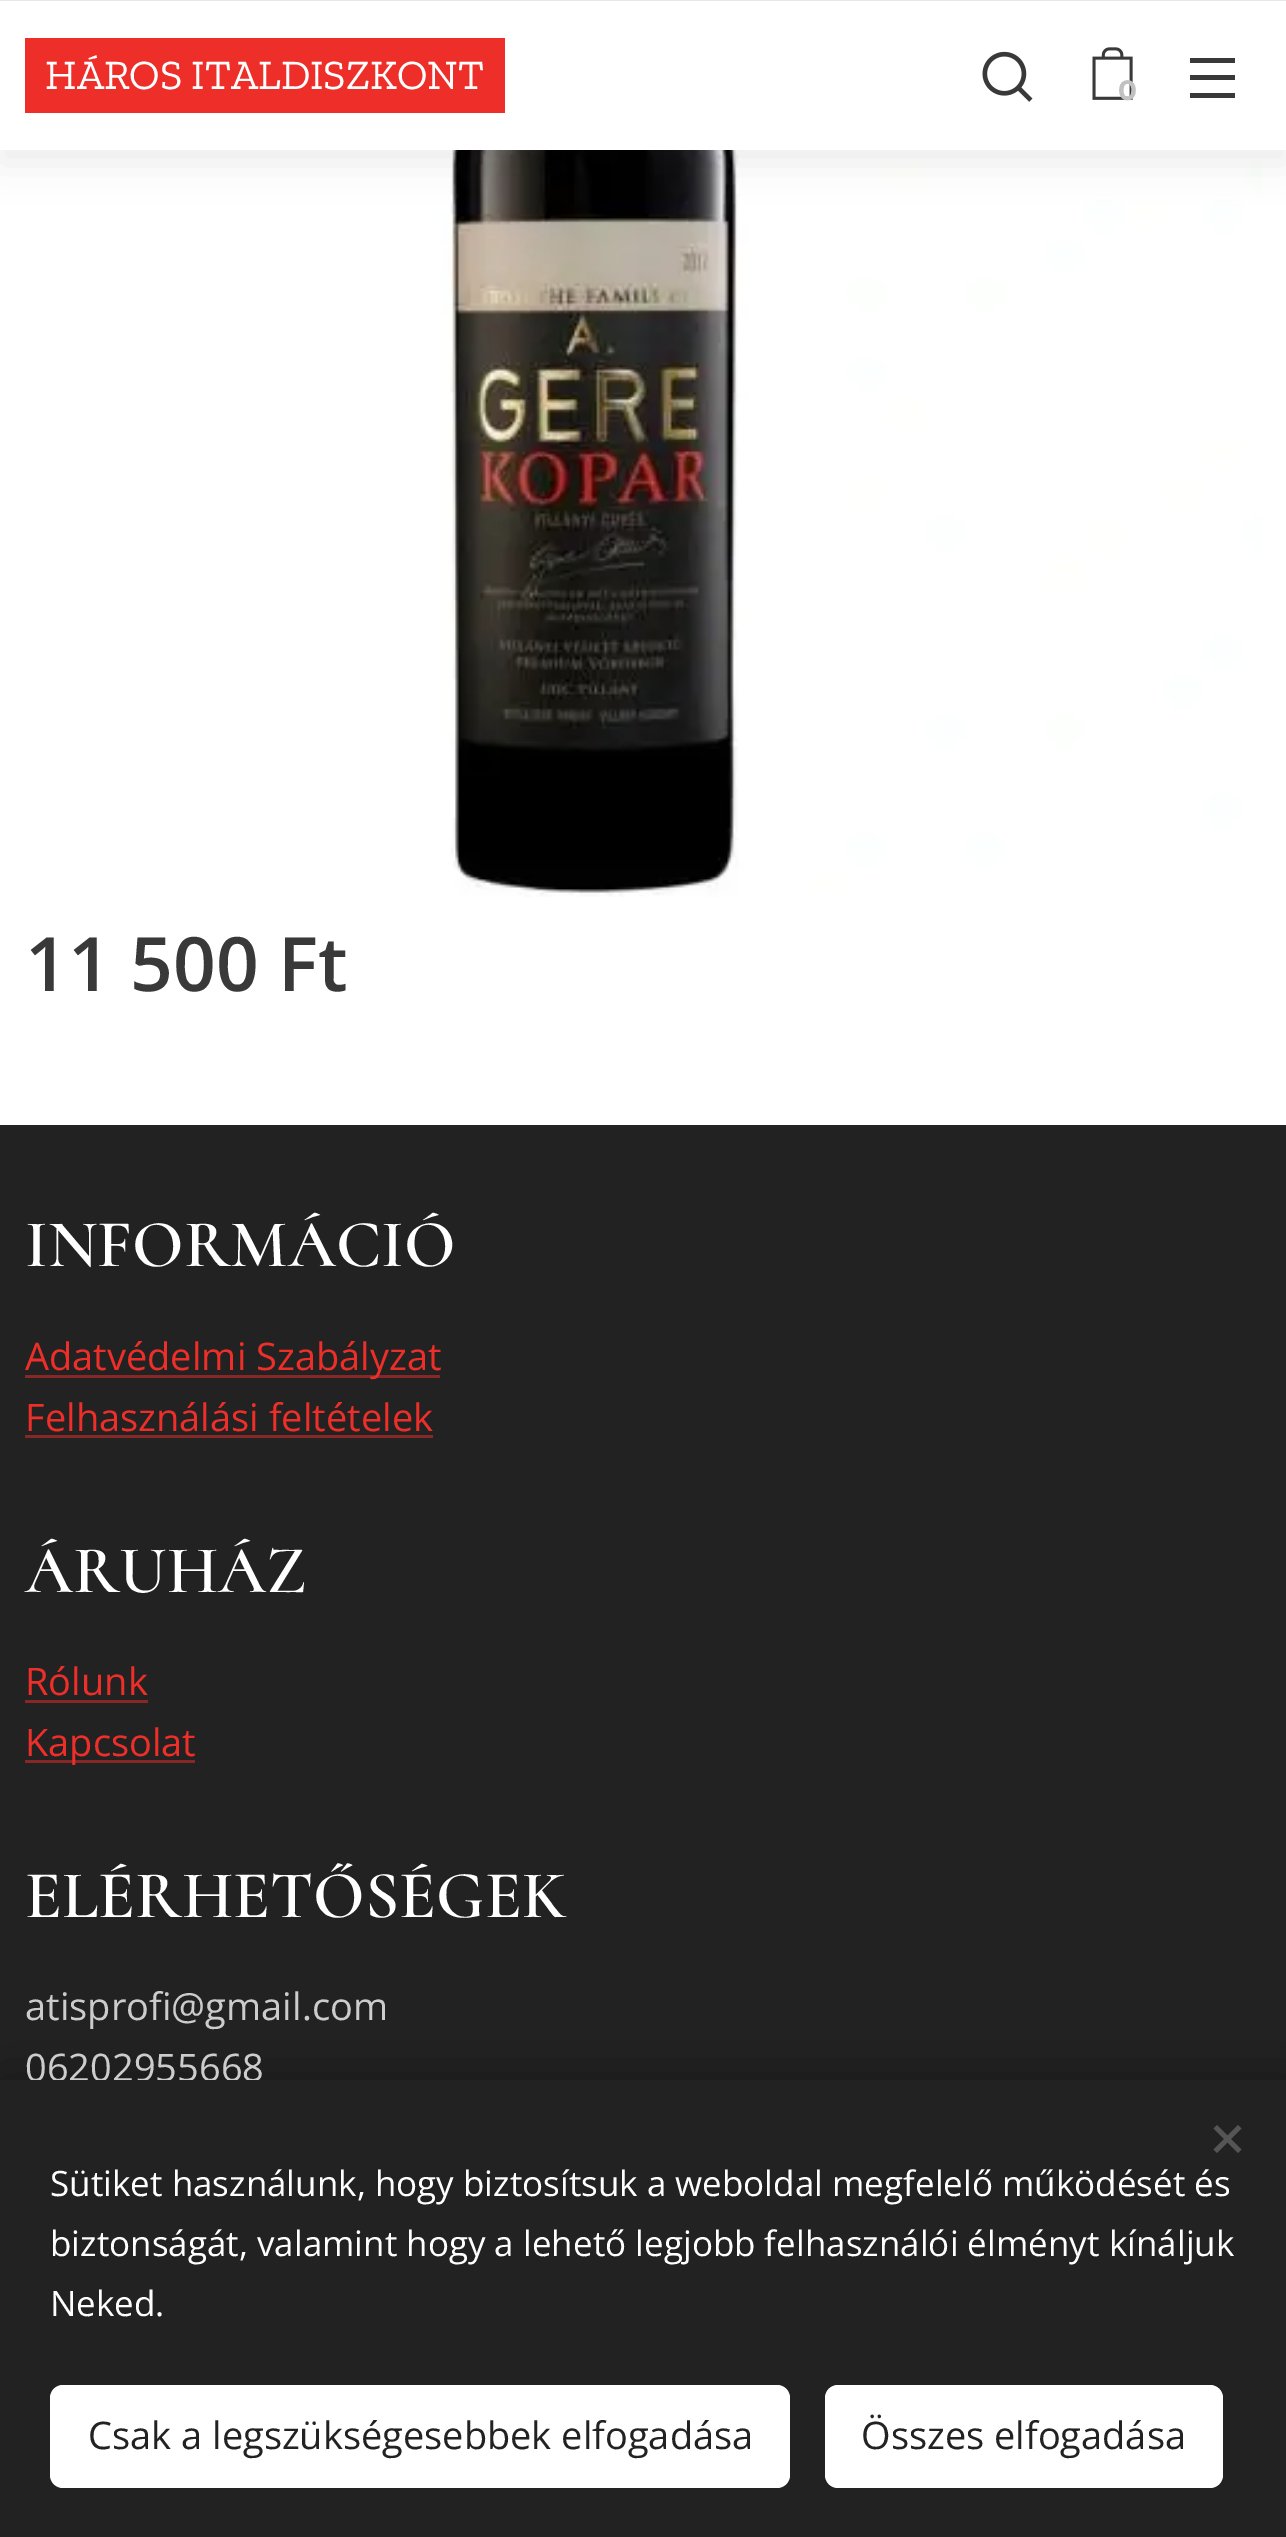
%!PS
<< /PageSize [1286 2537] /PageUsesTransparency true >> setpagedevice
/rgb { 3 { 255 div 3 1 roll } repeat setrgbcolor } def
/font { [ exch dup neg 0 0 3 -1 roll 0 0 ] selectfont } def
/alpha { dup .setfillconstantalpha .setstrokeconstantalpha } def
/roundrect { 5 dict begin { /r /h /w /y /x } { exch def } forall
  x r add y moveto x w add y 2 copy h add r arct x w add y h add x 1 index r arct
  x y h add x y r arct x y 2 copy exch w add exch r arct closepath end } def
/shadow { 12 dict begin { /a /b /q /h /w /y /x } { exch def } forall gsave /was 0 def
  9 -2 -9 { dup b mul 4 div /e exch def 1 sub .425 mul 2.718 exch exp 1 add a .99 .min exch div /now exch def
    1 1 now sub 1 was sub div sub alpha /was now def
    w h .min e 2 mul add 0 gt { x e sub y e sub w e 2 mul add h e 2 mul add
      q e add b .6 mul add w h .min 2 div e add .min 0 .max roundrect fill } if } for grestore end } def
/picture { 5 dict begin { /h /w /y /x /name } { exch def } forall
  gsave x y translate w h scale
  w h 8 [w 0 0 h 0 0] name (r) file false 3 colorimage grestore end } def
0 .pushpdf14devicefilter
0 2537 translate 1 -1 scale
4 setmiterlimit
255 255 255 rgb
0 0 1286 2537 rectfill
(img/3.rgb) 441 150 821 747 picture
0 0 0 rgb
0 13 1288 150 0 19 0.07 shadow
[
  [0 1 1286 149 255 255 255]
  [25 38 480 75 237 46 41]
  [0 0 1286 1 232 232 232]
] { aload pop rgb rectfill } forall
(img/1.rgb) 982 51 51 51 picture
(img/2.rgb) 1092 47 41 53 picture
[
  [1190 75 45 5 57 57 57]
  [1190 58 45 5 57 57 57]
  [1190 93 45 5 57 57 57]
  [0 1125 1286 955 34 34 34]
  [25 1375 415 3 136 40 38]
  [25 1435 408 3 136 40 38]
  [25 1700 123 3 136 40 38]
  [25 1760 170 3 136 40 38]
] { aload pop rgb rectfill } forall
0 0 0 rgb
0 2080 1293 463 0 31 0.33 shadow
/ZillaSlab-Regular 41.75 font
255 255 255 rgb
45 89 moveto (HÁROS ITALDISZKONT) show
/Montserrat-Bold 28 font
193 193 193 rgb
1118 100 moveto (0) show
/OpenSans-SemiBold 75 font
57 57 57 rgb
25 991 moveto (11 500 Ft) show
/Cormorant-SemiBold 67.5 font
255 255 255 rgb
25 1266 moveto (INFORMÁCIÓ) show
/OpenSans-Regular 38 font
237 46 41 rgb
25 1370 moveto (Adatvédelmi Szabályzat) show
25 1431 moveto (Felhasználási feltételek) show
/Cormorant-SemiBold 67.5 font
255 255 255 rgb
25 1592 moveto (ÁRUHÁZ) show
/OpenSans-Regular 38 font
237 46 41 rgb
25 1695 moveto (Rólunk) show
25 1756 moveto (Kapcsolat) show
/Cormorant-SemiBold 67.5 font
255 255 255 rgb
25 1917 moveto (ELÉRHETŐSÉGEK) show
/OpenSans-Regular 38 font
204 204 204 rgb
25 2020 moveto (atisprofi@gmail.com) show
25 2081 moveto (06202955668) show
34 34 34 rgb
0 2080 1286 457 rectfill
85 85 85 rgb
1213.5 2149.5 moveto 1238 2125 lineto 1241.5 2128.5 lineto 1217 2153 lineto closepath fill
1217 2125 moveto 1241.5 2149.5 lineto 1238 2153 lineto 1213.5 2128.5 lineto closepath fill
/OpenSans-Regular 35 font
255 255 255 rgb
[
  [(Sütiket használunk, hogy biztosítsuk a weboldal megfelelő működését és) 50 2196]
  [(biztonságát, valamint hogy a lehető legjobb felhasználói élményt kínáljuk) 50 2256]
  [(Neked.) 50 2316]
] { aload pop moveto show } forall
50 2385 740 103 13 roundrect fill
/OpenSans-Regular 38 font
34 34 34 rgb
88 2449 moveto (Csak a legszükségesebbek elfogadása) show
255 255 255 rgb
825 2385 398 103 13 roundrect fill
34 34 34 rgb
861 2449 moveto (Összes elfogadása) show
.poppdf14devicefilter showpage
